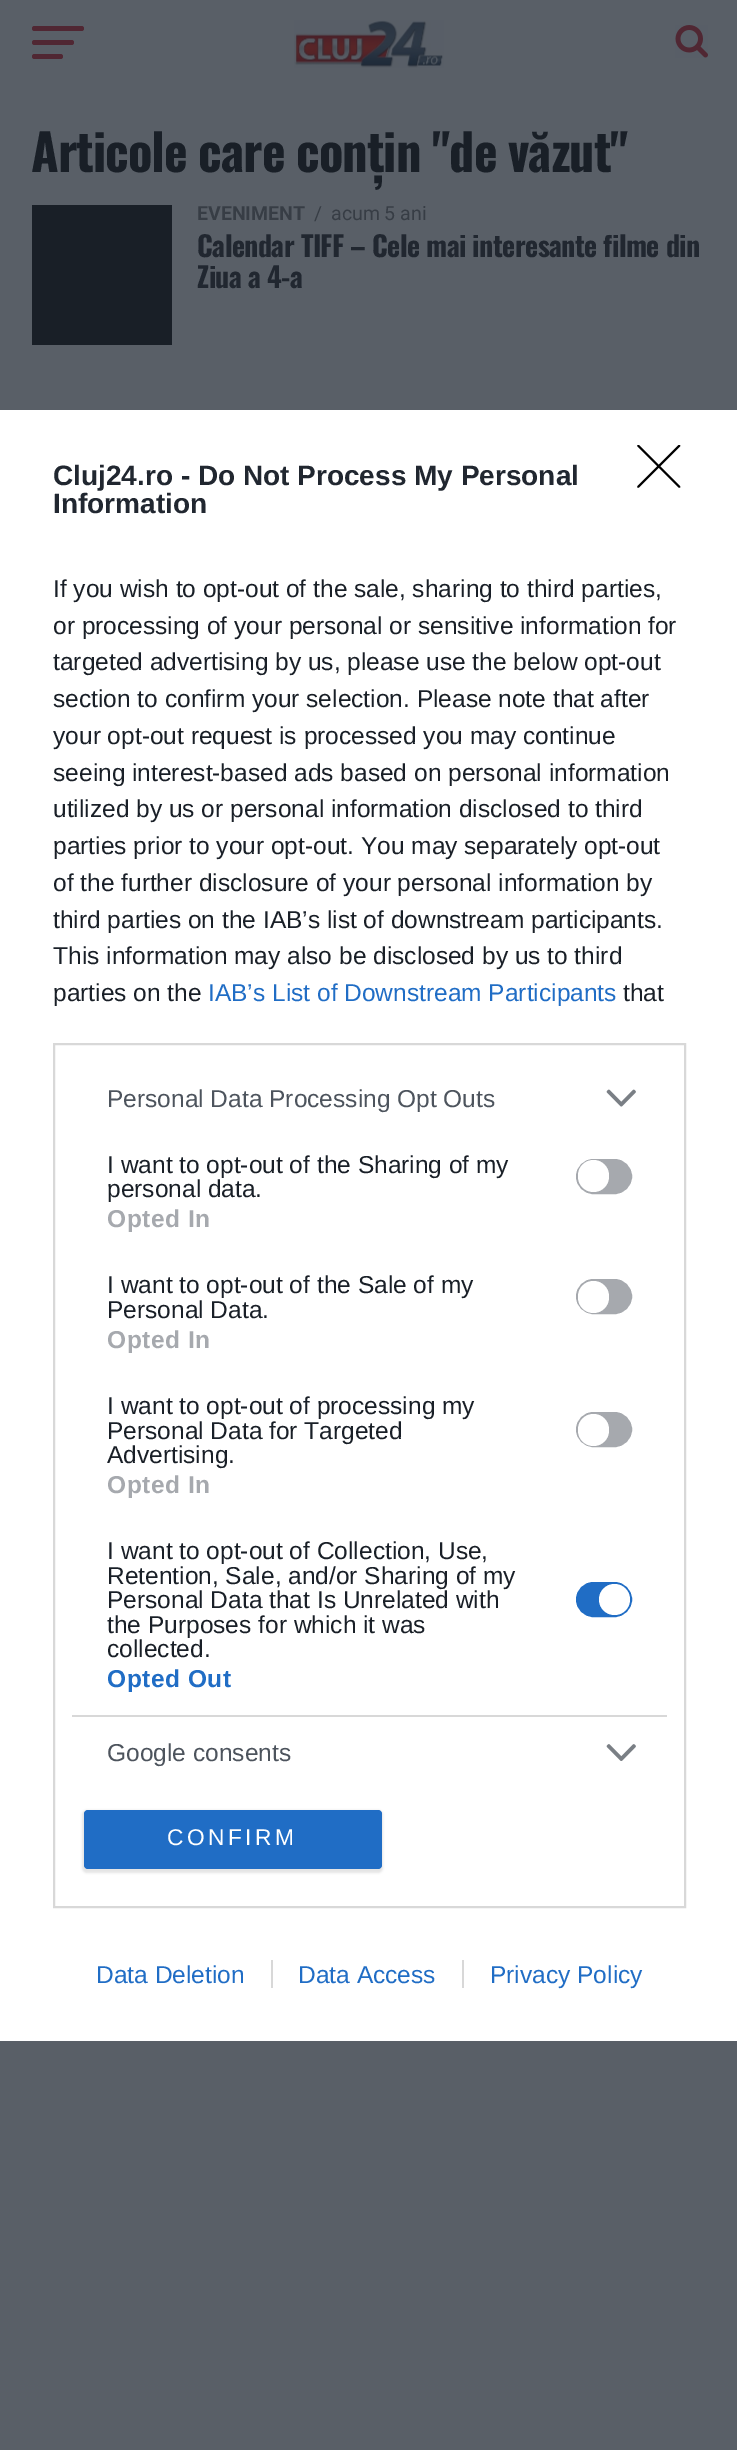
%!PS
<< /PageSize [737 2450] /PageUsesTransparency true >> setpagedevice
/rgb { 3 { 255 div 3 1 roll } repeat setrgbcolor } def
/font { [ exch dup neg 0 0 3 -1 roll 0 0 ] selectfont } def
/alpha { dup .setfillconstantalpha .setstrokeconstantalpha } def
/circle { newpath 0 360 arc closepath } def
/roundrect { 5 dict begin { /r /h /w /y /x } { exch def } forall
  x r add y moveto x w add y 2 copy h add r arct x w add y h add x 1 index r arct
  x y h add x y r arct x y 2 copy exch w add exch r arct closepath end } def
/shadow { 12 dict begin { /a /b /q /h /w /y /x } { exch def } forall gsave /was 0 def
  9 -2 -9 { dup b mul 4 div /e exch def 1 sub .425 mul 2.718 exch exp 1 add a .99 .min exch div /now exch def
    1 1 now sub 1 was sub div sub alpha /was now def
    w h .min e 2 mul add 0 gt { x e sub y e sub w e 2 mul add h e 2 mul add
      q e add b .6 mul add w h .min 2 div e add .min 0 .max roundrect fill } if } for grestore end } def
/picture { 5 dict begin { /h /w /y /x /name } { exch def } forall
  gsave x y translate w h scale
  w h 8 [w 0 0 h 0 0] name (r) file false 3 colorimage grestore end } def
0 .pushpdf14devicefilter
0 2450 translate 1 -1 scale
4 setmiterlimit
89 95 103 rgb
0 0 737 2450 rectfill
80 39 51 rgb
32 26 52 5 2.5 roundrect fill
32 40 42 5 2.5 roundrect fill
32 54 31 5 2.5 roundrect fill
(img/1.rgb) 294 20 150 48 picture
(img/2.rgb) 675 25 33 33 picture
25 31 39 rgb
32 205 140 140 rectfill
255 255 255 rgb
0 410 737 1631 rectfill
gsave
637 445 44 43 rectclip
0 0 0 rgb
1.8 setlinewidth
1 setlinecap
1 setlinejoin
638 445.5 moveto 679.5 487 lineto 679.5 445.5 moveto 638 487 lineto stroke
grestore
216 216 216 rgb
2 setlinewidth
54 1044 631 863 rectstroke
72 1715 595 2 rectfill
(img/3.rgb) 606 1089 30 18 picture
166 169 174 rgb
577 1160 54 33 16.5 roundrect gsave fill grestore
stroke
255 255 255 rgb
578 1160 31 32 15.5 roundrect fill
166 169 174 rgb
577 1280 54 33 16.5 roundrect gsave fill grestore
stroke
255 255 255 rgb
578 1281 31 32 15.5 roundrect fill
166 169 174 rgb
577 1413 54 33 16.5 roundrect gsave fill grestore
stroke
255 255 255 rgb
578 1414 31 32 15.5 roundrect fill
32 109 197 rgb
577 1583 54 33 16.5 roundrect gsave fill grestore
stroke
255 255 255 rgb
614.5 1599.5 15.5 circle fill
(img/4.rgb) 606 1744 30 17 picture
0 0 0 rgb
82 1810 301 63 5 1 0.1 shadow
32 109 197 rgb
84 1810 298 59 4 roundrect fill
216 216 216 rgb
271 1960 2 28 rectfill
462 1960 2 28 rectfill
/Oswald-Bold 50.4 font
25 31 39 rgb
31 172 moveto -1 0 (Articole care conțin "de văzut") ashow
/Roboto-Bold 19.5 font
55 61 69 rgb
197 220 moveto (EVENIMENT) show
/Roboto-Regular 19.5 font
314 220 moveto (/) show
331 220 moveto (acum 5 ani) show
/Oswald-Bold 28 font
33 39 48 rgb
197 257 moveto -0.55 0 (Calendar TIFF – Cele mai interesante filme din) ashow
197 288 moveto -0.55 0 (Ziua a 4-a) ashow
/LiberationSans-Bold 28 font
53 485 moveto (Cluj24.ro - Do Not Process My Personal) show
53 513 moveto (Information) show
/LiberationSans-Regular 24.5 font
25 31 39 rgb
[
  [(If you wish to opt-out of the sale, sharing to third parties,) 53 597]
  [(or processing of your personal or sensitive information for) 53 634]
  [(targeted advertising by us, please use the below opt-out) 53 670]
  [(section to confirm your selection. Please note that after) 53 707]
  [(your opt-out request is processed you may continue) 53 744]
  [(seeing interest-based ads based on personal information) 53 781]
  [(utilized by us or personal information disclosed to third) 53 817]
  [(parties prior to your opt-out. You may separately opt-out) 53 854]
  [(of the further disclosure of your personal information by) 53 891]
  [(third parties on the IAB’s list of downstream participants.) 53 928]
  [(This information may also be disclosed by us to third) 53 964]
  [(parties on the) 53 1001]
] { aload pop moveto show } forall
32 109 197 rgb
208 1001 moveto (IAB’s List of Downstream Participants) show
25 31 39 rgb
623 1001 moveto (that) show
77 84 93 rgb
107 1107 moveto (Personal Data Processing Opt Outs) show
25 31 39 rgb
107 1173 moveto (I want to opt-out of the Sharing of my) show
107 1197 moveto (personal data.) show
/LiberationSans-Bold 24.5 font
166 169 174 rgb
107 1227 moveto 0.5 0 (Opted In) ashow
/LiberationSans-Regular 24.5 font
25 31 39 rgb
107 1293 moveto (I want to opt-out of the Sale of my) show
107 1318 moveto (Personal Data.) show
/LiberationSans-Bold 24.5 font
166 169 174 rgb
107 1348 moveto 0.5 0 (Opted In) ashow
/LiberationSans-Regular 24.5 font
25 31 39 rgb
[
  [(I want to opt-out of processing my) 107 1414]
  [(Personal Data for Targeted) 107 1439]
  [(Advertising.) 107 1463]
] { aload pop moveto show } forall
/LiberationSans-Bold 24.5 font
166 169 174 rgb
107 1493 moveto 0.5 0 (Opted In) ashow
/LiberationSans-Regular 24.5 font
25 31 39 rgb
[
  [(I want to opt-out of Collection, Use,) 107 1559]
  [(Retention, Sale, and/or Sharing of my) 107 1584]
  [(Personal Data that Is Unrelated with) 107 1608]
  [(the Purposes for which it was) 107 1633]
  [(collected.) 107 1657]
] { aload pop moveto show } forall
/LiberationSans-Bold 24.5 font
32 109 197 rgb
107 1687 moveto 0.5 0 (Opted Out) ashow
/LiberationSans-Regular 24.5 font
77 84 93 rgb
107 1761 moveto (Google consents) show
/LiberationSans-Regular 22.75 font
255 255 255 rgb
167 1845 moveto 3.5 0 (CONFIRM) ashow
/LiberationSans-Regular 24.5 font
32 109 197 rgb
[
  [(Data Deletion) 96 1983]
  [(Data Access) 298 1983]
  [(Privacy Policy) 490 1983]
] { aload pop moveto show } forall
.poppdf14devicefilter showpage
